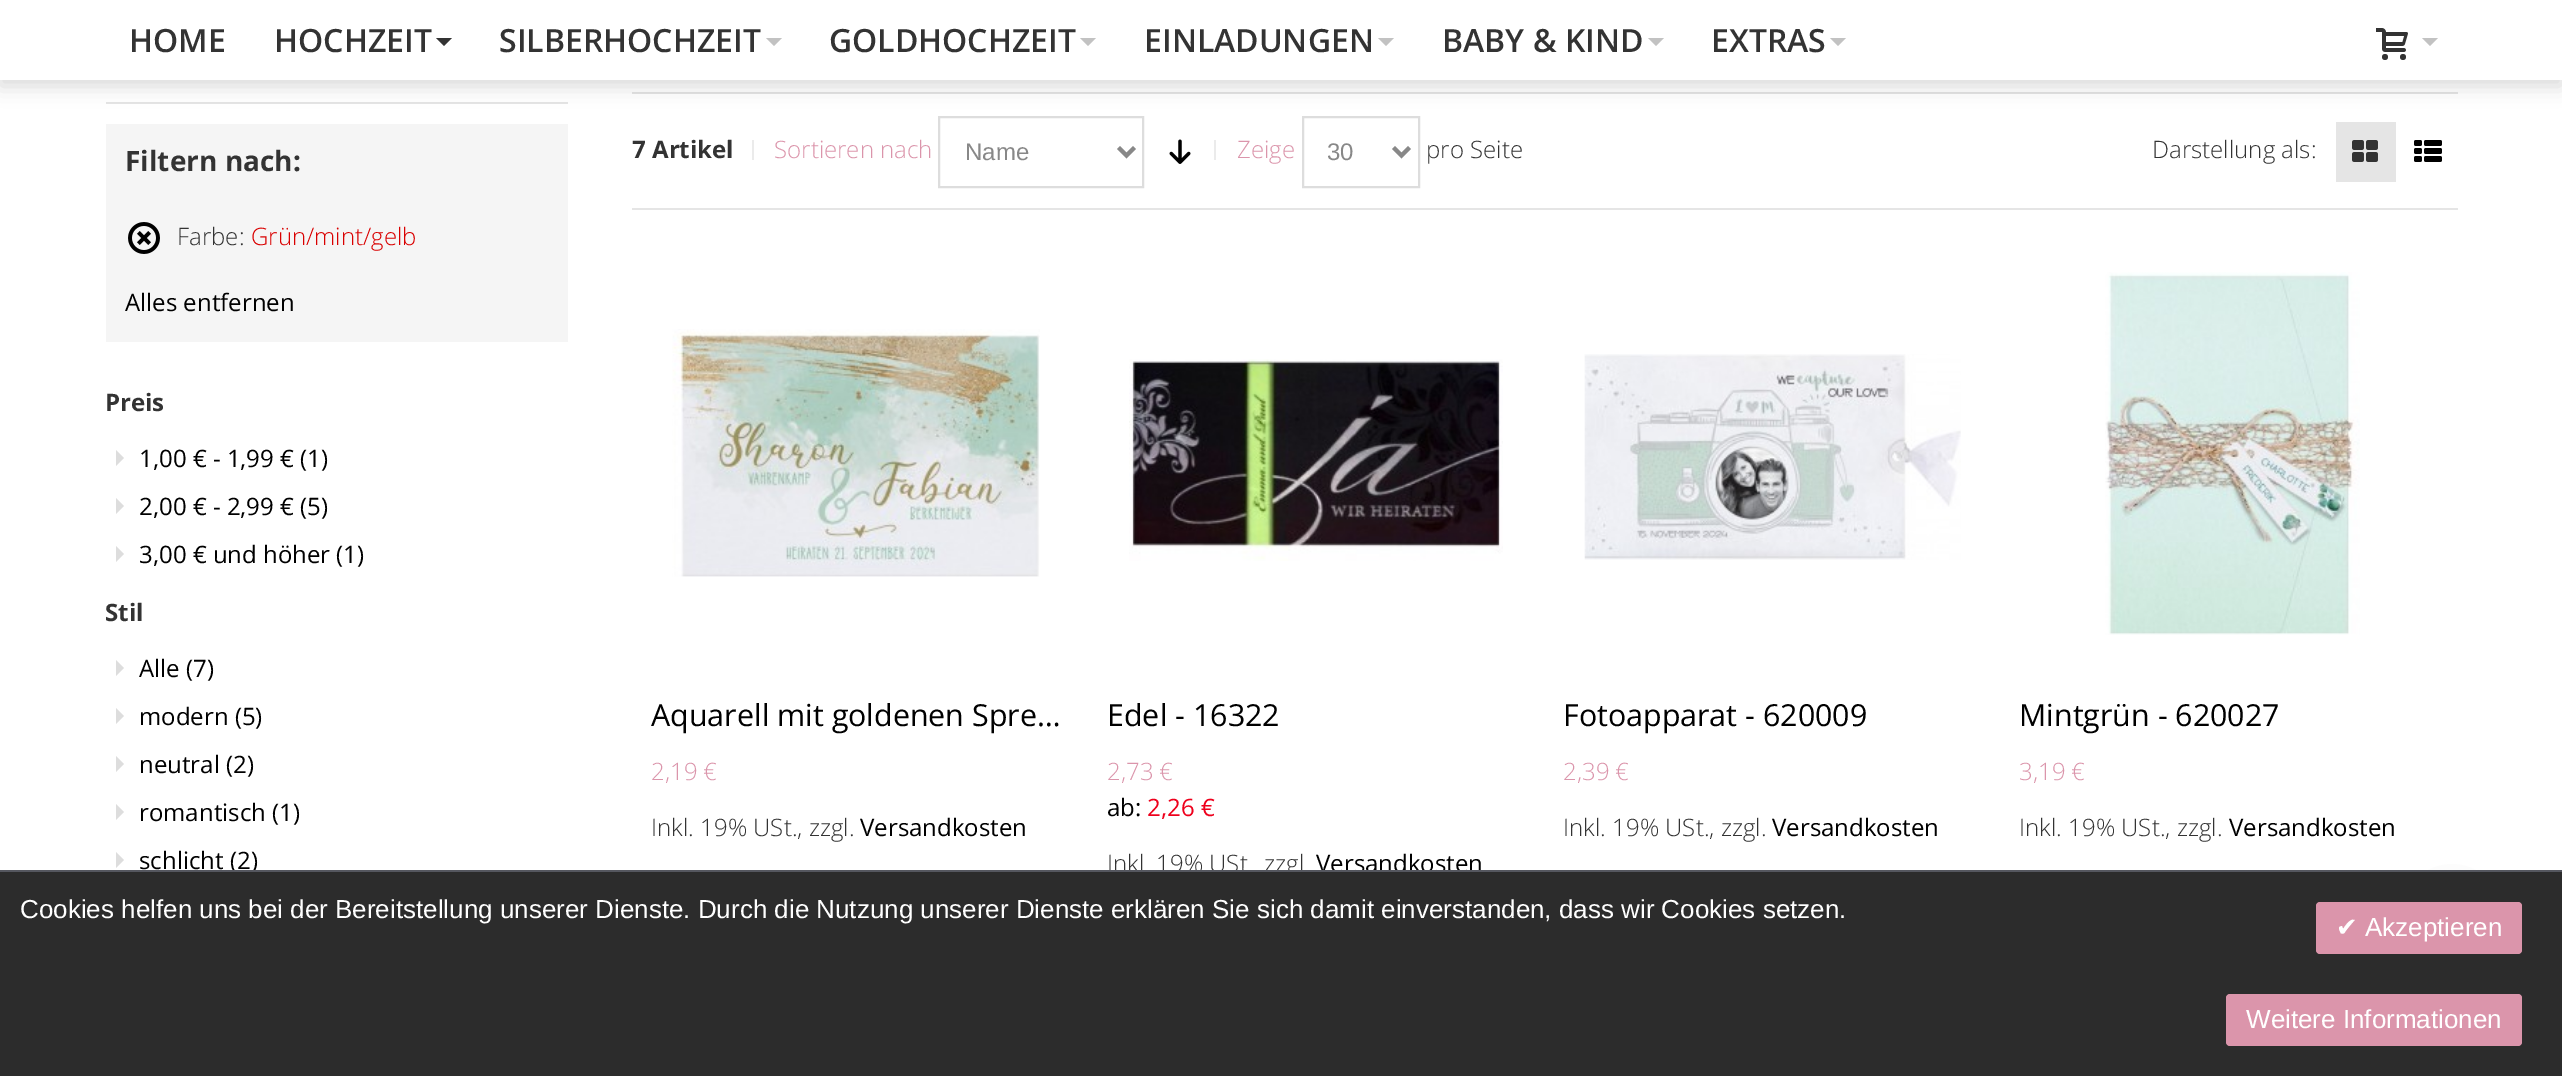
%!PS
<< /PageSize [2562 1076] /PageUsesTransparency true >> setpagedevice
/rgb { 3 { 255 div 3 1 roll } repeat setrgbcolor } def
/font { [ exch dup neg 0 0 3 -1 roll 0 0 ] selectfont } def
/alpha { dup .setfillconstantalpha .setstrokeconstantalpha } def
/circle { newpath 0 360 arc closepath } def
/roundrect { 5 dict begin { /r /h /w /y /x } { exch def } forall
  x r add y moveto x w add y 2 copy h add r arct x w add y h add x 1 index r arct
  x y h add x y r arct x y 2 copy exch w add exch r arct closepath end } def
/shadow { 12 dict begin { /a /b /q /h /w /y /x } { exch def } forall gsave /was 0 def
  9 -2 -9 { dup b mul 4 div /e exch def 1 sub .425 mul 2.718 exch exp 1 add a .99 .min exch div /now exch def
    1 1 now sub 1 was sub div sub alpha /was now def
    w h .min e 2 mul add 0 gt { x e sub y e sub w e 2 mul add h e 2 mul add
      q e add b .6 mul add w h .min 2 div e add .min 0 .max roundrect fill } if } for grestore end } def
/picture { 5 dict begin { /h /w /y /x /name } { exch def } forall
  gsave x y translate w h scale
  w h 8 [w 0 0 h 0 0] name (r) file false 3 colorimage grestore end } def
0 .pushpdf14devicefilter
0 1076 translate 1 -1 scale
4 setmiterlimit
255 255 255 rgb
0 0 2562 1076 rectfill
229 229 229 rgb
106 102 462 2 rectfill
632 92 1826 2 rectfill
221 221 221 rgb
2 setlinewidth
939 117 204 70 rectstroke
1303 117 116 70 rectstroke
0 0 0 rgb
0 6 2562 80 0 10 0.15 shadow
255 255 255 rgb
0 0 2562 80 rectfill
51 51 51 rgb
436 38 moveto 452 38 lineto 444 46 lineto closepath fill
194 194 194 rgb
766 38 moveto 782 38 lineto 774 46 lineto closepath fill
1080 38 moveto 1096 38 lineto 1088 46 lineto closepath fill
1378 38 moveto 1394 38 lineto 1386 46 lineto closepath fill
1648 38 moveto 1664 38 lineto 1656 46 lineto closepath fill
1830 38 moveto 1846 38 lineto 1838 46 lineto closepath fill
(img/1.rgb) 2376 28 32 32 picture
2422 38 moveto 2438 38 lineto 2430 46 lineto closepath fill
245 245 245 rgb
106 124 462 218 rectfill
(img/2.rgb) 128 222 32 32 picture
221 221 221 rgb
116 466 moveto 116 450 lineto 124 458 lineto closepath fill
116 514 moveto 116 498 lineto 124 506 lineto closepath fill
116 562 moveto 116 546 lineto 124 554 lineto closepath fill
116 676 moveto 116 660 lineto 124 668 lineto closepath fill
116 724 moveto 116 708 lineto 124 716 lineto closepath fill
116 772 moveto 116 756 lineto 124 764 lineto closepath fill
116 820 moveto 116 804 lineto 124 812 lineto closepath fill
116 868 moveto 116 852 lineto 124 860 lineto closepath fill
[
  [632 208 1826 2 229 229 229]
  [752 140 2 20 235 235 235]
  [1214 140 2 20 235 235 235]
] { aload pop rgb rectfill } forall
136 136 136 rgb
4 setlinewidth
1118.5 147.5 moveto 1126.5 155.5 lineto 1134.5 147.5 lineto stroke
(img/3.rgb) 1169 139 22 25 picture
1393.5 147.5 moveto 1401.5 155.5 lineto 1409.5 147.5 lineto stroke
229 229 229 rgb
2336 122 60 60 rectfill
(img/4.rgb) 2352 140 26 22 picture
(img/5.rgb) 2414 140 28 22 picture
(img/6.rgb) 672 329 368 248 picture
(img/7.rgb) 1129 359 374 202 picture
(img/8.rgb) 1584 354 377 206 picture
(img/9.rgb) 2105 272 255 363 picture
252 252 252 rgb
2452 914 50 circle fill
/OpenSans-SemiBold 32 font
51 51 51 rgb
[
  [(HOME) 129 52]
  [(HOCHZEIT) 274 52]
  [(SILBERHOCHZEIT) 499 52]
  [(GOLDHOCHZEIT) 829 52]
  [(EINLADUNGEN) 1144 52]
  [(BABY & KIND) 1442 52]
  [(EXTRAS) 1711 52]
] { aload pop moveto show } forall
/OpenSans-Bold 28 font
125 171 moveto (Filtern nach:) show
/OpenSans-Light 24 font
177 245 moveto (Farbe:) show
217 0 0 rgb
251 245 moveto (Grün/mint/gelb) show
/OpenSans-Regular 24 font
0 0 0 rgb
125 311 moveto (Alles entfernen) show
/OpenSans-Bold 24 font
51 51 51 rgb
105 411 moveto (Preis) show
/OpenSans-Regular 24 font
0 0 0 rgb
[
  [(1,00 € - 1,99 € \(1\)) 139 467]
  [(2,00 € - 2,99 € \(5\)) 139 515]
  [(3,00 € und höher \(1\)) 139 563]
] { aload pop moveto show } forall
/OpenSans-Bold 24 font
51 51 51 rgb
105 621 moveto (Stil) show
/OpenSans-Regular 24 font
0 0 0 rgb
[
  [(Alle \(7\)) 139 677]
  [(modern \(5\)) 139 725]
  [(neutral \(2\)) 139 773]
  [(romantisch \(1\)) 139 821]
  [(schlicht \(2\)) 139 869]
] { aload pop moveto show } forall
/OpenSans-Bold 24 font
51 51 51 rgb
632 158 moveto (7 Artikel) show
/OpenSans-Light 24 font
219 149 171 rgb
774 158 moveto (Sortieren nach) show
/LiberationSans-Regular 24 font
136 136 136 rgb
965 160 moveto (Name) show
/OpenSans-Light 24 font
219 149 171 rgb
1237 158 moveto (Zeige) show
/LiberationSans-Regular 24 font
136 136 136 rgb
1327 160 moveto (30) show
/OpenSans-Light 24 font
51 51 51 rgb
1426 158 moveto (pro Seite) show
2152 158 moveto (Darstellung als:) show
/OpenSans-Regular 30.4 font
0 0 0 rgb
651 726 moveto (Aquarell mit goldenen Spre…) show
/OpenSans-Light 24 font
219 149 171 rgb
651 780 moveto (2,19 €) show
51 51 51 rgb
651 836 moveto (Inkl. 19% USt., zzgl.) show
/OpenSans-Regular 24 font
0 0 0 rgb
860 836 moveto (Versandkosten) show
/OpenSans-Regular 30.4 font
1107 726 moveto (Edel - 16322) show
/OpenSans-Light 24 font
219 149 171 rgb
1107 780 moveto (2,73 €) show
/OpenSans-Regular 24 font
0 0 0 rgb
1107 816 moveto (ab:) show
238 0 28 rgb
1147 816 moveto (2,26 €) show
/OpenSans-Light 24 font
51 51 51 rgb
1107 872 moveto (Inkl. 19% USt) show
1264 872 moveto (zzgl) show
/OpenSans-Regular 24 font
0 0 0 rgb
1316 872 moveto (Versandkosten) show
/OpenSans-Regular 30.4 font
1563 726 moveto (Fotoapparat - 620009) show
/OpenSans-Light 24 font
219 149 171 rgb
1563 780 moveto (2,39 €) show
51 51 51 rgb
1563 836 moveto (Inkl. 19% USt., zzgl.) show
/OpenSans-Regular 24 font
0 0 0 rgb
1772 836 moveto (Versandkosten) show
/OpenSans-Regular 30.4 font
2019 726 moveto (Mintgrün - 620027) show
/OpenSans-Light 24 font
219 149 171 rgb
2019 780 moveto (3,19 €) show
51 51 51 rgb
2019 836 moveto (Inkl. 19% USt., zzgl.) show
/OpenSans-Regular 24 font
0 0 0 rgb
2229 836 moveto (Versandkosten) show
44 44 44 rgb
0 872 2562 204 rectfill
85 87 95 rgb
0 870 2562 2 rectfill
/LiberationSans-Regular 26 font
255 255 255 rgb
20 918 moveto (Cookies helfen uns bei der Bereitstellung unserer Dienste. Durch die Nutzung unserer Dienste erklären Sie sich damit einverstanden, dass wir Cookies setzen.) show
219 149 171 rgb
2316 902 206 52 4 roundrect fill
/DejaVuSans-Regular 26 font
255 255 255 rgb
2336 936 moveto (✔) show
/LiberationSans-Regular 26 font
2365 936 moveto (Akzeptieren) show
219 149 171 rgb
2226 994 296 52 4 roundrect fill
255 255 255 rgb
2246 1028 moveto (Weitere Informationen) show
.poppdf14devicefilter showpage
